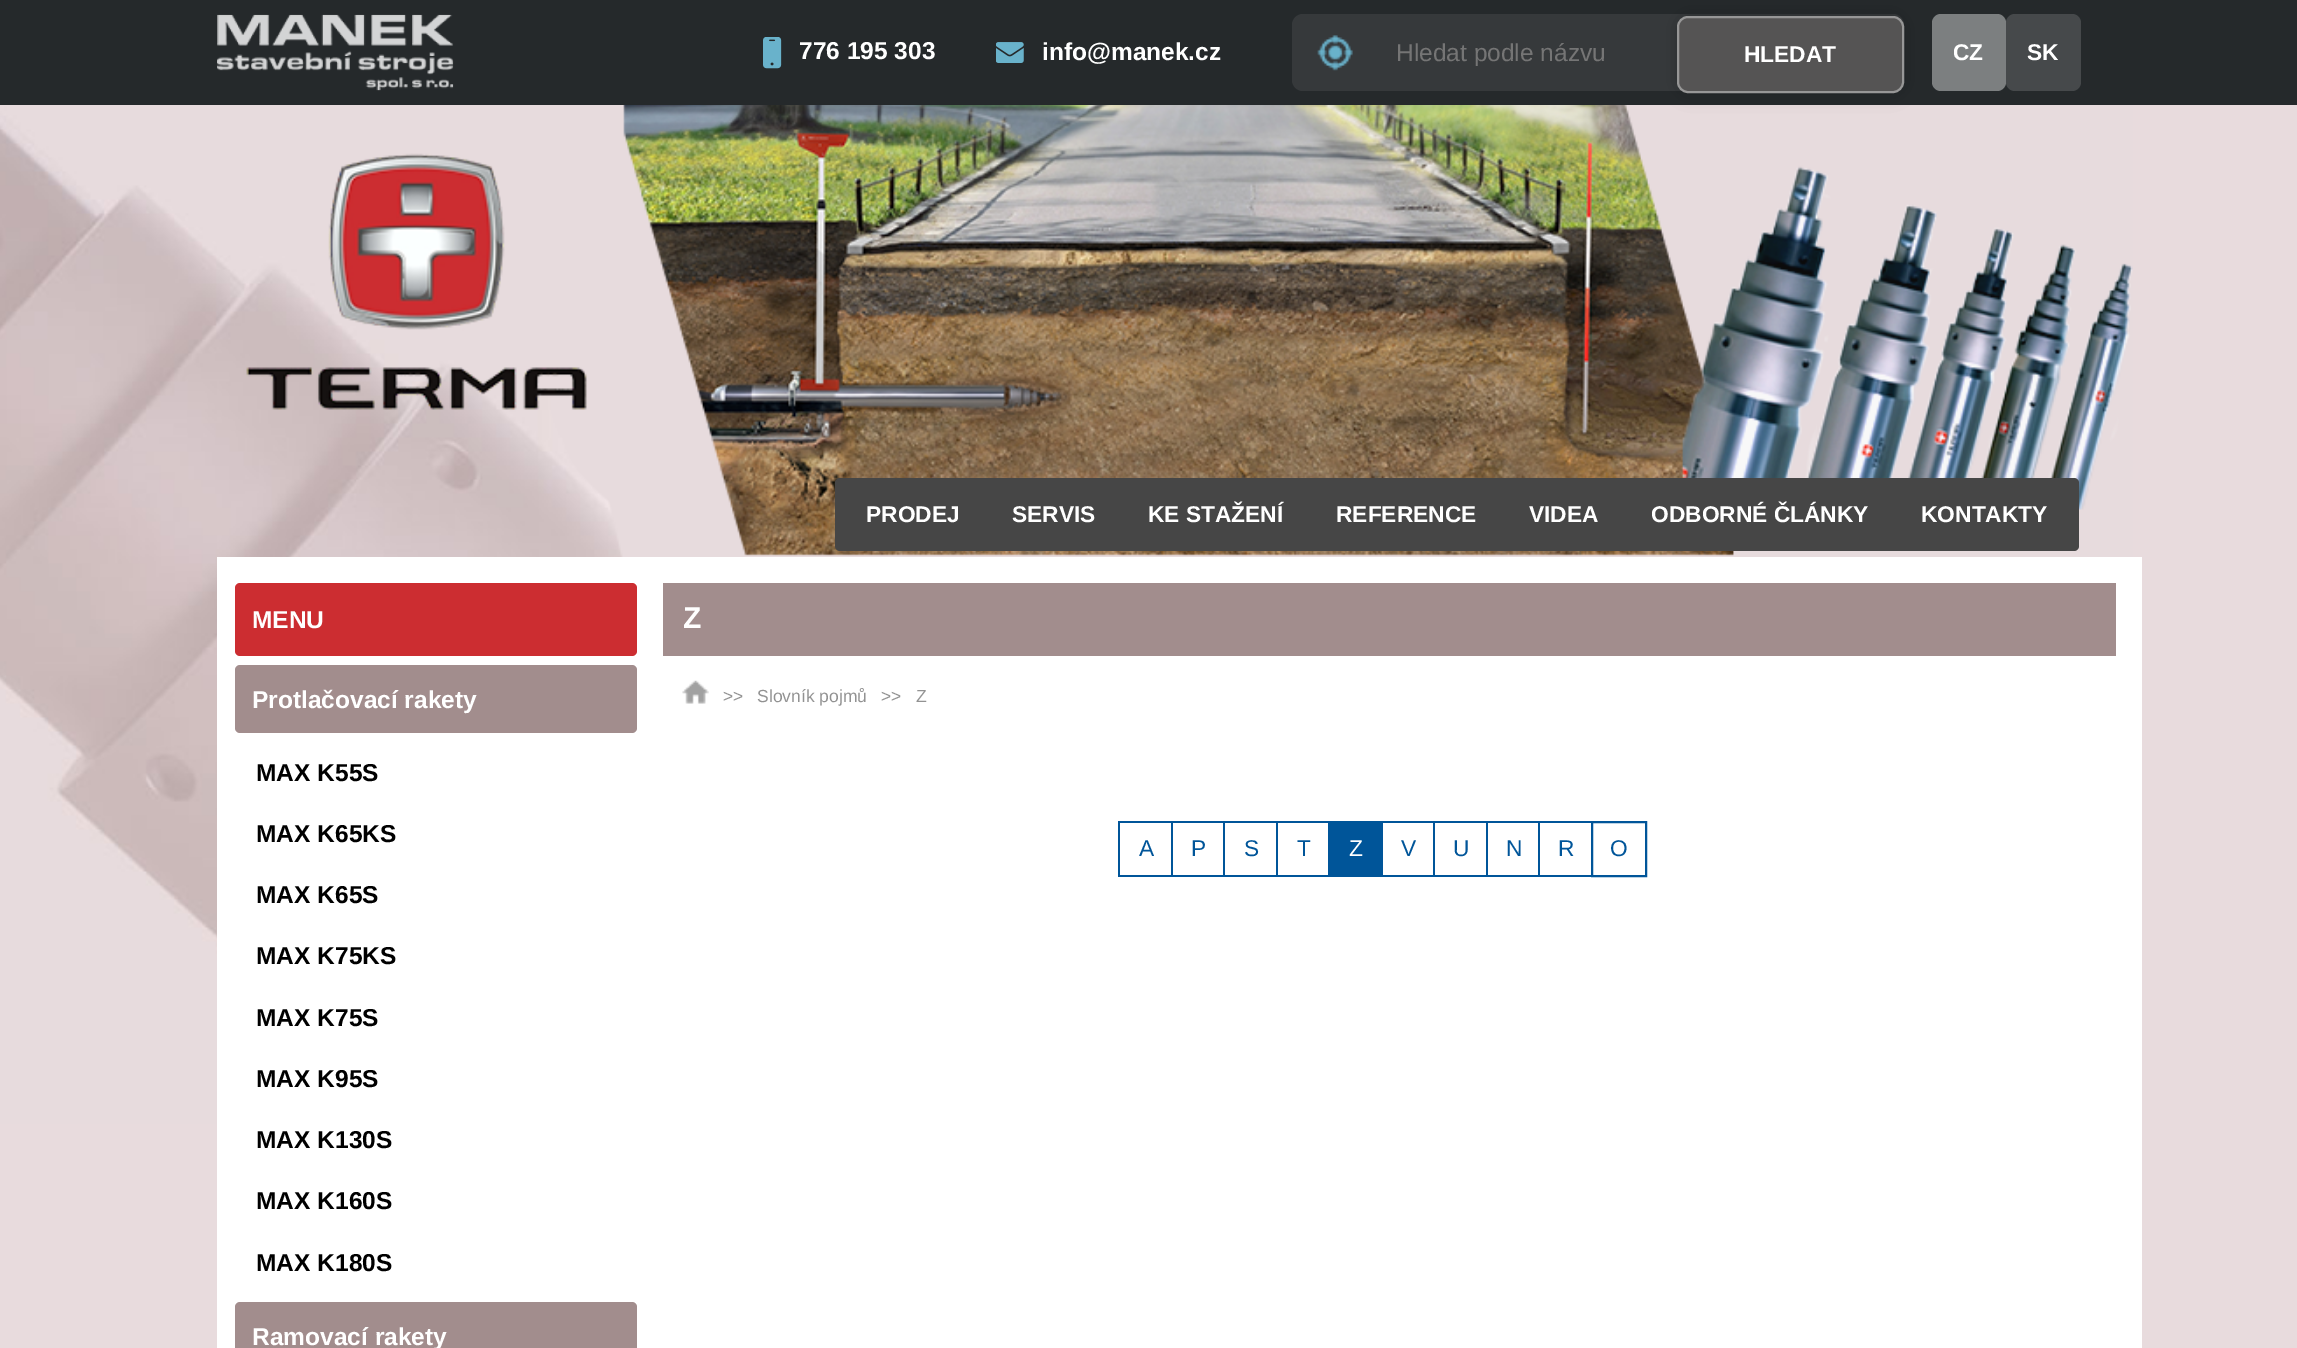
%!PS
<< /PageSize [2297 1348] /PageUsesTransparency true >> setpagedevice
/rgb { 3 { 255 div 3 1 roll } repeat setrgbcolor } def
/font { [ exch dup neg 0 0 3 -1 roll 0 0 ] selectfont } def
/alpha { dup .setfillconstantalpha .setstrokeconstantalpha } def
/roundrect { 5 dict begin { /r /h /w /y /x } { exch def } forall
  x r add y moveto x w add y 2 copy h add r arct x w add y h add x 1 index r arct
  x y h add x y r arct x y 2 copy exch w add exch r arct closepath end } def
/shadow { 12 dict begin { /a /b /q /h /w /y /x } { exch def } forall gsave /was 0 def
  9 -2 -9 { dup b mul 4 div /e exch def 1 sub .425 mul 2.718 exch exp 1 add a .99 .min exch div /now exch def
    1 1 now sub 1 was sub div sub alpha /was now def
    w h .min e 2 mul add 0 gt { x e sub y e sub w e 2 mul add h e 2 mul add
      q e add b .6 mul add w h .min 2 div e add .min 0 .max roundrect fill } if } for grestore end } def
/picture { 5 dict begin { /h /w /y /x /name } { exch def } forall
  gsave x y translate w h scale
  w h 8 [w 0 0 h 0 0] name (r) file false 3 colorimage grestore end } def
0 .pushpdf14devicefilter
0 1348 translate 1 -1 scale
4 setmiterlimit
232 219 221 rgb
0 0 2297 1348 rectfill
(img/1.rgb) 0 105 2133 1019 picture
37 41 43 rgb
0 0 2297 105 rectfill
(img/2.rgb) 217 14 237 77 picture
(img/3.rgb) 763 37 19 32 picture
(img/4.rgb) 996 42 28 21 picture
54 57 59 rgb
1292 14 612 77 11 roundrect fill
(img/5.rgb) 1317 35 36 36 picture
(img/6.rgb) 1317 35 36 36 picture
0 0 0 rgb
1677 16 227 77 11 9 0.2 shadow
85 84 84 rgb
1678 17 225 75 10 roundrect gsave fill grestore
151 151 151 rgb
2 setlinewidth
stroke
124 127 128 rgb
1932 14 74 77 9 roundrect fill
70 73 75 rgb
2006 14 75 77 9 roundrect fill
(img/7.rgb) 246 153 341 257 picture
70 70 70 rgb
835 478 1244 73 5 roundrect fill
255 255 255 rgb
217 557 1925 791 rectfill
204 45 49 rgb
235 583 402 73 5 roundrect fill
162 141 141 rgb
235 665 402 68 5 roundrect fill
235 1302 402 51 5 roundrect fill
663 583 1453 73 rectfill
(img/8.rgb) 682 680 27 24 picture
[
  [1118 821 212 2 0 85 153]
  [1118 875 212 2 0 85 153]
  [1118 821 2 56 0 85 153]
  [1171 821 2 56 0 85 153]
  [1223 821 2 56 0 85 153]
  [1276 821 2 56 0 85 153]
  [1328 821 55 56 0 85 153]
  [1381 821 212 2 0 85 153]
  [1381 875 212 2 0 85 153]
  [1433 821 2 56 0 85 153]
  [1486 821 2 56 0 85 153]
  [1538 821 2 56 0 85 153]
] { aload pop rgb rectfill } forall
1592 822 54 54 rectstroke
/LiberationSans-Bold 24.5 font
255 255 255 rgb
799 59 moveto (776 195 303) show
1042 60 moveto (info@manek.cz) show
/LiberationSans-Regular 24.5 font
117 117 117 rgb
1396 61 moveto (Hledat podle názvu) show
/LiberationSans-Bold 22.75 font
255 255 255 rgb
[
  [(HLEDAT) 1744 62]
  [(CZ) 1953 60]
  [(SK) 2027 60]
  [(PRODEJ) 866 522]
  [(SERVIS) 1012 522]
  [(KE STAŽENÍ) 1148 522]
  [(REFERENCE) 1336 522]
  [(VIDEA) 1529 522]
  [(ODBORNÉ ČLÁNKY) 1651 522]
  [(KONTAKTY) 1921 522]
] { aload pop moveto show } forall
/LiberationSans-Bold 24.5 font
252 628 moveto (MENU) show
252 708 moveto (Protlačovací rakety) show
0 0 0 rgb
[
  [(MAX K55S) 256 781]
  [(MAX K65KS) 256 842]
  [(MAX K65S) 256 903]
  [(MAX K75KS) 256 964]
  [(MAX K75S) 256 1026]
  [(MAX K95S) 256 1087]
  [(MAX K130S) 256 1148]
  [(MAX K160S) 256 1209]
  [(MAX K180S) 256 1271]
] { aload pop moveto show } forall
255 255 255 rgb
252 1345 moveto (Ramovací rakety) show
/LiberationSans-Bold 30 font
683 628 moveto (Z) show
/LiberationSans-Regular 17.5 font
146 146 146 rgb
[
  [(>>) 723 702]
  [(Slovník pojmů) 757 702]
  [(>>) 881 702]
  [(Z) 916 702]
] { aload pop moveto show } forall
/LiberationSans-Regular 22.75 font
0 85 153 rgb
[
  [(A) 1139 856]
  [(P) 1191 856]
  [(S) 1244 856]
  [(T) 1297 856]
] { aload pop moveto show } forall
255 255 255 rgb
1349 856 moveto (Z) show
0 85 153 rgb
[
  [(V) 1401 856]
  [(U) 1453 856]
  [(N) 1506 856]
  [(R) 1558 856]
  [(O) 1610 856]
] { aload pop moveto show } forall
.poppdf14devicefilter showpage
